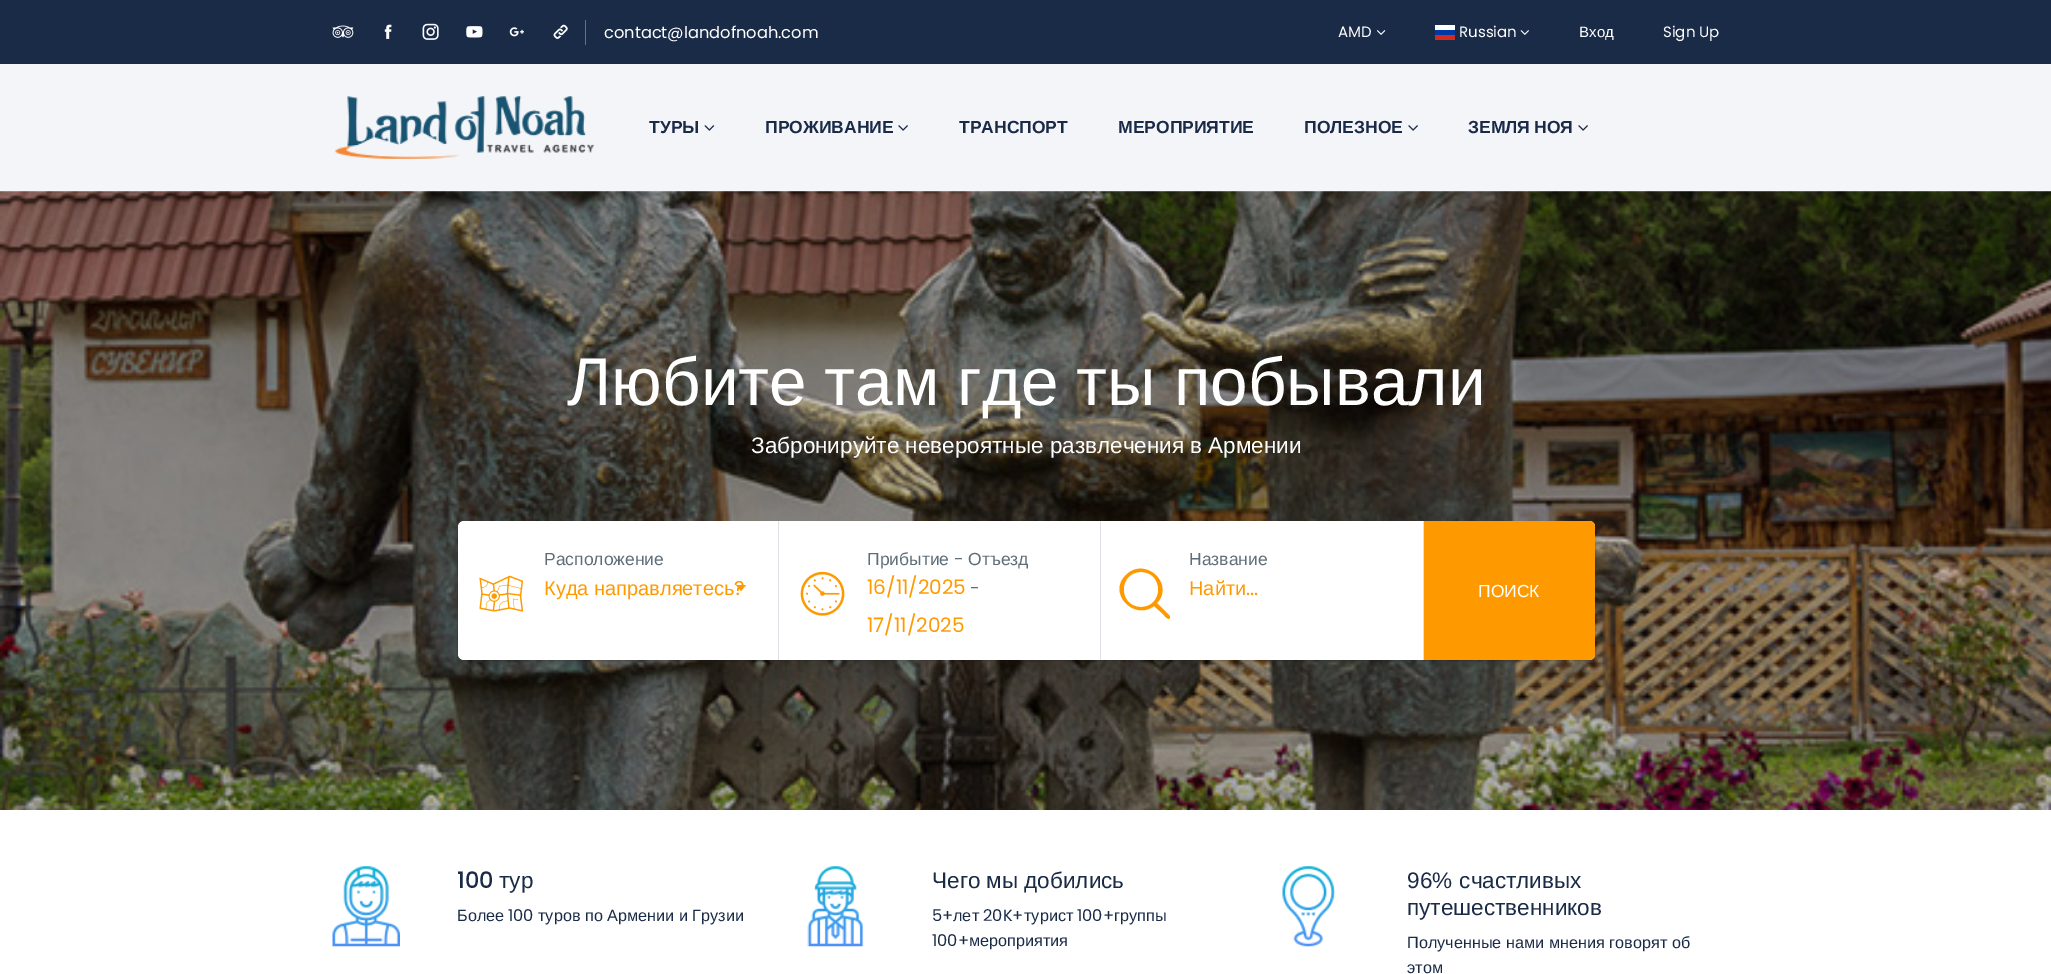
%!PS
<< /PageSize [2051 974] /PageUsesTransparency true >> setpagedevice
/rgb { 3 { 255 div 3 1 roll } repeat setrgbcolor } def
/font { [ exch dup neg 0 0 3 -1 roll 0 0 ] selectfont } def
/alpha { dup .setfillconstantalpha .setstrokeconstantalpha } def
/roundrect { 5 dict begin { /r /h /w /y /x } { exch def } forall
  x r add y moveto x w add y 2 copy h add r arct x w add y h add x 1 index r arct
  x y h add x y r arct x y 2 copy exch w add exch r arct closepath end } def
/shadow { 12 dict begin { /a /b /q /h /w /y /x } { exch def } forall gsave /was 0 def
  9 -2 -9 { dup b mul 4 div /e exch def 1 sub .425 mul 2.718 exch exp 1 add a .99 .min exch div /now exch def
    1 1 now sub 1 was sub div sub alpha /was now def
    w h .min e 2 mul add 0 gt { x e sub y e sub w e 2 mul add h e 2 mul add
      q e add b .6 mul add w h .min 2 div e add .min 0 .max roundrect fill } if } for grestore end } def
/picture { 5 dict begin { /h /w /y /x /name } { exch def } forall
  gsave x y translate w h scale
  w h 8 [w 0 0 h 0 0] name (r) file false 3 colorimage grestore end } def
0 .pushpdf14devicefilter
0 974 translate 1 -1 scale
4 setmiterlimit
255 255 255 rgb
0 0 2051 974 rectfill
26 43 72 rgb
0 0 2051 64 rectfill
(img/1.rgb) 332 25 22 13 picture
(img/2.rgb) 384 24 8 15 picture
(img/3.rgb) 422 23 17 17 picture
(img/4.rgb) 466 26 17 12 picture
(img/5.rgb) 509 27 15 10 picture
(img/6.rgb) 553 24 15 15 picture
95 113 144 rgb
585 20 1 25 rectfill
(img/7.rgb) 1376 30 10 5 picture
[
  [1435 25 20 5 255 255 255]
  [1435 30 20 5 0 57 166]
  [1435 35 20 5 213 43 30]
] { aload pop rgb rectfill } forall
(img/8.rgb) 1520 30 9 5 picture
244 245 249 rgb
0 64 2051 127 rectfill
(img/9.rgb) 334 96 260 63 picture
(img/10.rgb) 704 125 11 6 picture
(img/11.rgb) 898 125 10 6 picture
(img/11.rgb) 1408 125 10 6 picture
(img/11.rgb) 1578 125 10 6 picture
(img/12.rgb) 0 191 2051 619 picture
0 0 0 rgb
458 523 1137 138 6 1 0.2 shadow
255 255 255 rgb
458 521 1137 139 6 roundrect fill
222 226 230 rgb
778 521 1 139 rectfill
(img/13.rgb) 479 575 45 37 picture
255 153 0 rgb
736 585 moveto 746 585 lineto 741 591 lineto closepath fill
222 226 230 rgb
1100 521 1 139 rectfill
(img/14.rgb) 800 571 45 45 picture
1423 521 1 139 rectfill
255 153 0 rgb
1170 616 moveto 1157 603 lineto 1175 584 1145 556 1126 575 curveto 1107 593 1134 621 1154 606 curveto 1163 614 lineto 1164 615 1168 621 1170 618 curveto 1170 618 1170 617 1170 616 curveto closepath 1141 607 moveto 1118 607 1118 572 1141 572 curveto 1164 572 1164 607 1141 607 curveto closepath fill
1424 521 moveto 1589 521 lineto 1592.5 521 1595 523.5 1595 527 curveto 1595 654 lineto 1595 657.5 1592.5 660 1589 660 curveto 1424 660 lineto closepath fill
(img/15.rgb) 332 866 68 81 picture
(img/16.rgb) 807 866 57 81 picture
(img/17.rgb) 1282 866 53 81 picture
/Poppins-Regular 16.25 font
255 255 255 rgb
604 38 moveto (contact@landofnoah.com) show
/Poppins-Regular 15 font
1338 37 moveto (AMD) show
1459 37 moveto (Russian) show
/LiberationSans-Regular 15 font
1579 37 moveto (Вход) show
/Poppins-Regular 15 font
1663 37 moveto (Sign Up) show
/LiberationSans-Bold 17.5 font
26 43 72 rgb
[
  [(ТУРЫ) 649 133]
  [(ПРОЖИВАНИЕ) 765 133]
  [(ТРАНСПОРТ) 959 133]
  [(МЕРОПРИЯТИЕ) 1118 133]
  [(ПОЛЕЗНОЕ) 1304 133]
] { aload pop moveto show } forall
1468 133 moveto -1 0 32 (ЗЕМЛЯ НОЯ) widthshow
/LiberationSans-Regular 67.5 font
255 255 255 rgb
567 405 moveto -1 0 32 (Любите там где ты побывали) widthshow
/LiberationSans-Regular 22.5 font
751 453 moveto (Забронируйте невероятные развлечения в Армении) show
/LiberationSans-Regular 17.5 font
94 109 119 rgb
544 565 moveto (Расположение) show
/LiberationSans-Regular 20 font
255 153 0 rgb
544 595 moveto (Куда направляетесь) show
/Poppins-Regular 20 font
734 595 moveto (?) show
/LiberationSans-Regular 17.5 font
94 109 119 rgb
867 565 moveto (Прибытие) show
/Poppins-Regular 17.5 font
954 565 moveto (-) show
/LiberationSans-Regular 17.5 font
968 565 moveto (Отъезд) show
/Poppins-Regular 20 font
255 153 0 rgb
867 594 moveto (16/11/2025) show
/Poppins-Regular 17.5 font
94 109 119 rgb
970 594 moveto (-) show
/Poppins-Regular 20 font
255 153 0 rgb
867 632 moveto (17/11/2025) show
/LiberationSans-Regular 17.5 font
94 109 119 rgb
1189 565 moveto (Название) show
/LiberationSans-Regular 20 font
255 153 0 rgb
1189 595 moveto (Найти) show
/Poppins-Regular 20 font
1246 595 moveto (...) show
/LiberationSans-Regular 17.5 font
255 255 255 rgb
1478 597 moveto (ПОИСК) show
/Poppins-Medium 22.5 font
26 43 72 rgb
457 888 moveto (100) show
/LiberationSans-Regular 22.5 font
499 888 moveto (тур) show
/LiberationSans-Regular 16.25 font
457 921 moveto (Более) show
/Poppins-Regular 16.25 font
508 921 moveto (100) show
/LiberationSans-Regular 16.25 font
538 921 moveto (туров по Армении и Грузии) show
/LiberationSans-Regular 22.5 font
932 888 moveto (Чего мы добились) show
/Poppins-Regular 16.25 font
932 921 moveto (5+) show
/LiberationSans-Regular 16.25 font
953 921 moveto (лет) show
/Poppins-Regular 16.25 font
983 921 moveto (20K+) show
/LiberationSans-Regular 16.25 font
1024 921 moveto (турист) show
/Poppins-Regular 16.25 font
1077 921 moveto (100+) show
/LiberationSans-Regular 16.25 font
1114 921 moveto (группы) show
/Poppins-Regular 16.25 font
932 946 moveto (100+) show
/LiberationSans-Regular 16.25 font
969 946 moveto (мероприятия) show
/LiberationSans-Regular 22.5 font
1407 888 moveto 1 0 32 (96% счастливых) widthshow
1407 915 moveto (путешественников) show
/LiberationSans-Regular 16.25 font
1407 948 moveto (Полученные нами мнения говорят об) show
1407 973 moveto (этом) show
.poppdf14devicefilter showpage
